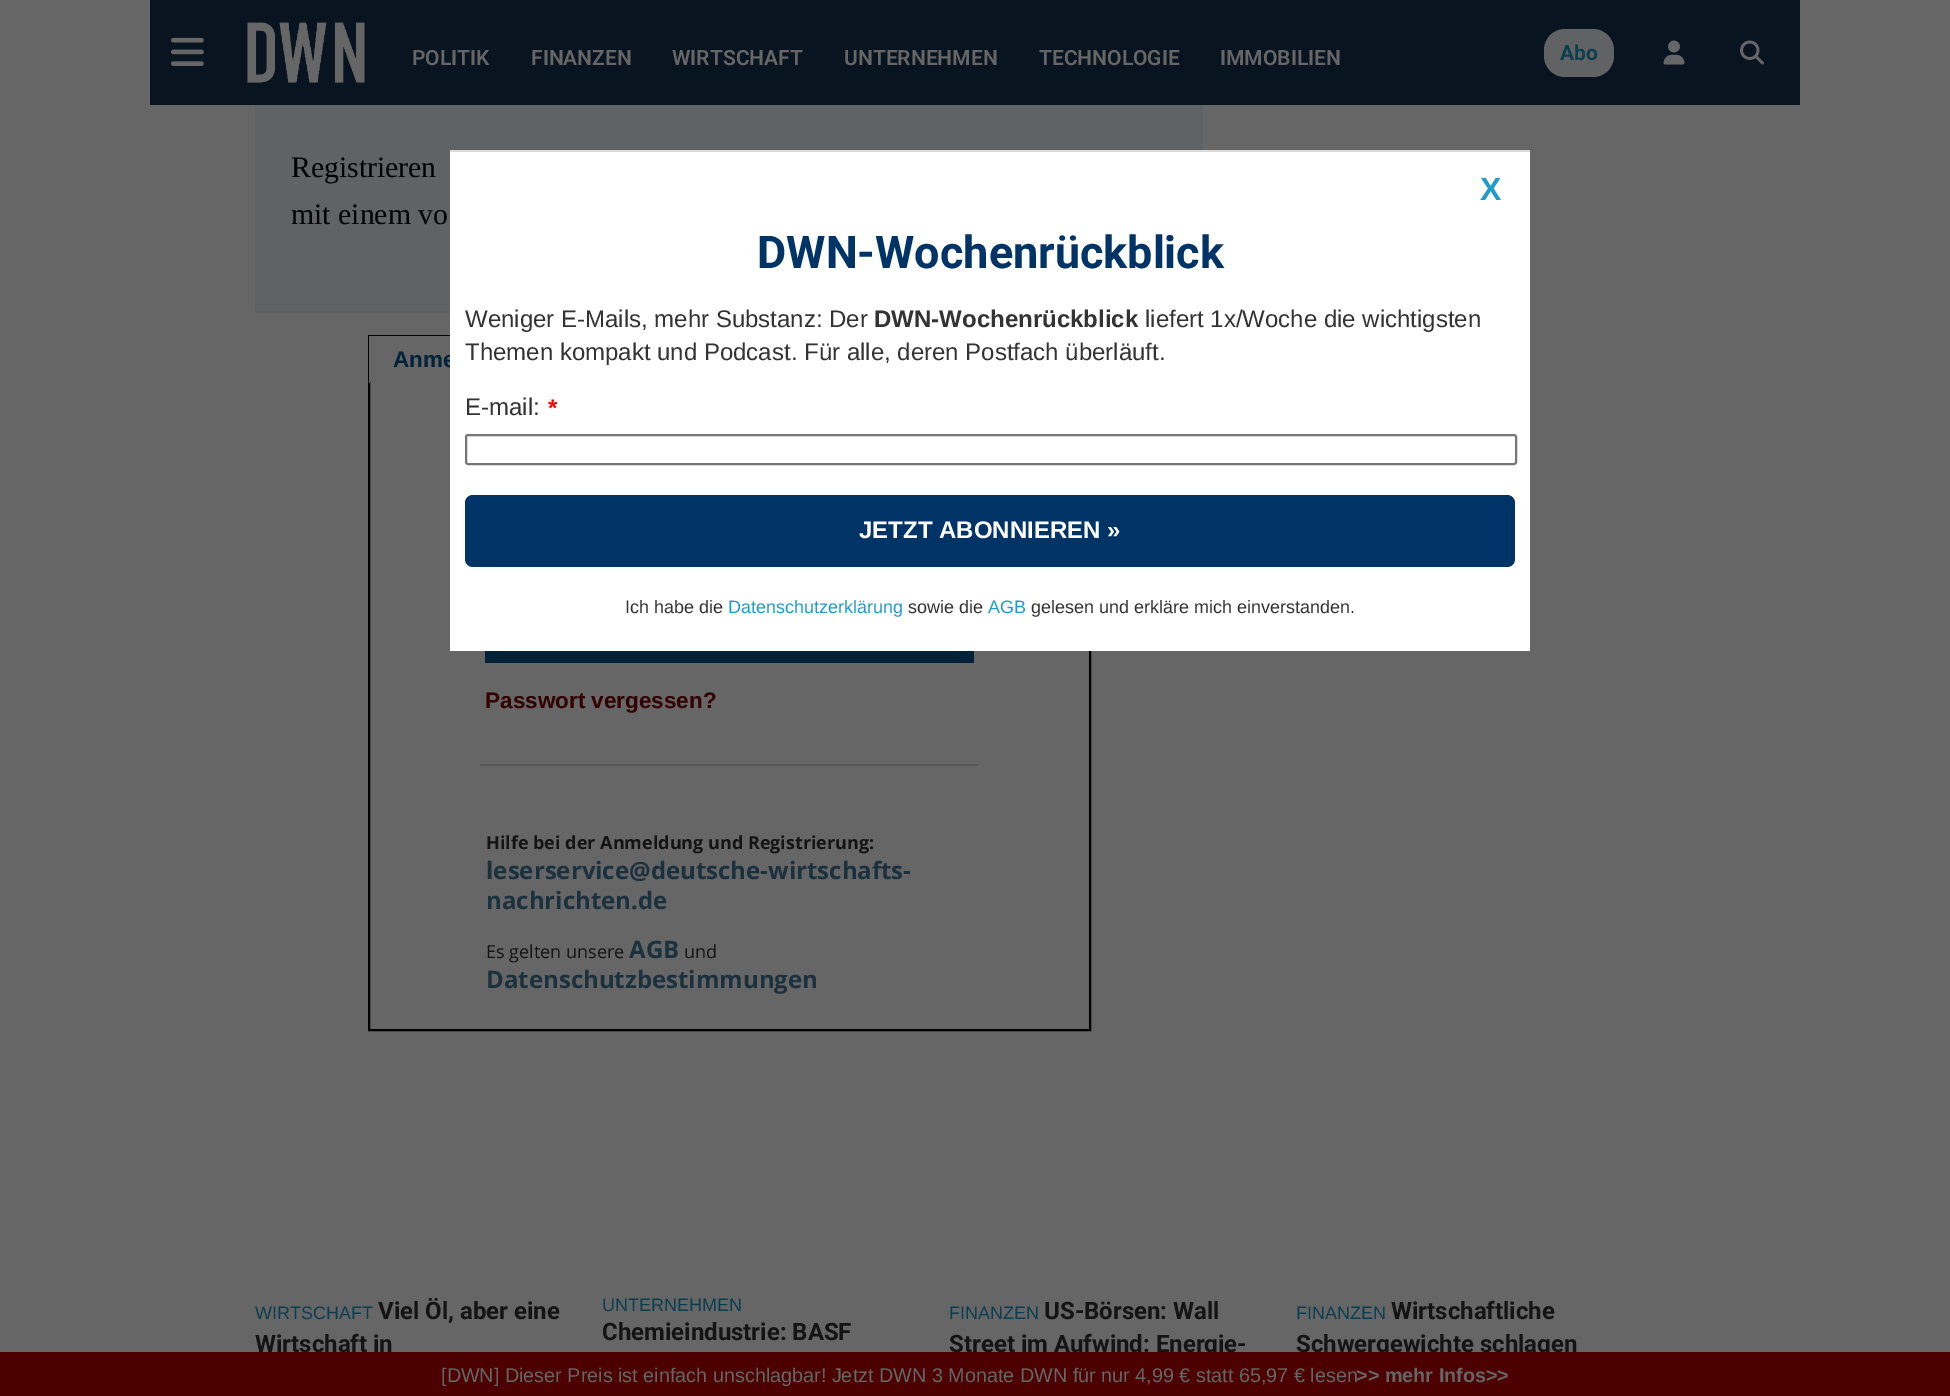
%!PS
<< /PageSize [1950 1396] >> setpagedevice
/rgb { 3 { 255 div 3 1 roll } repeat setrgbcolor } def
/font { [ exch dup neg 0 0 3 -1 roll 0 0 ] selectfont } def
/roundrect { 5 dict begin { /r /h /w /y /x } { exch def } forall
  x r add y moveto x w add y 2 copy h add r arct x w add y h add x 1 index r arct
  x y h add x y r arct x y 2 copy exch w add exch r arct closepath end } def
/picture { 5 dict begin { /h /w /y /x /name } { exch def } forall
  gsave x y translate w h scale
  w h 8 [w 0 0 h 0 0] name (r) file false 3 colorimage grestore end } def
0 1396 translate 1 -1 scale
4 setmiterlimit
102 102 102 rgb
0 0 1950 1396 rectfill
8 20 32 rgb
150 0 1650 105 rectfill
(img/1.rgb) 171 37 33 29 picture
(img/2.rgb) 247 22 118 61 picture
97 98 100 rgb
1544 29 70 48 21 roundrect fill
(img/3.rgb) 1663 40 22 25 picture
(img/4.rgb) 1740 40 24 25 picture
96 99 102 rgb
255 105 948 206 rectfill
94 94 96 rgb
255 311 195 2 rectfill
0 0 0 rgb
2 setlinewidth
369 336 721 694 rectstroke
[
  [369 336 81 45 102 102 102]
  [369 381 1 2 102 102 102]
  [485 651 489 12 2 34 56]
  [480 764 498 2 88 88 88]
  [450 150 1080 2 218 218 218]
] { aload pop rgb rectfill } forall
/Roboto-SemiBold 21 font
102 102 102 rgb
[
  [(POLITIK) 412 65]
  [(FINANZEN) 531 65]
  [(WIRTSCHAFT) 672 65]
  [(UNTERNEHMEN) 844 65]
  [(TECHNOLOGIE) 1039 65]
  [(IMMOBILIEN) 1220 65]
] { aload pop moveto show } forall
/Roboto-Bold 21 font
13 62 80 rgb
1560 60 moveto (Abo) show
/LiberationSerif-Regular 29.75 font
0 0 0 rgb
291 177 moveto (Registrieren) show
291 224 moveto (mit einem vo) show
/LiberationSans-Bold 22.5 font
2 34 56 rgb
393 367 moveto (Anme) show
51 0 0 rgb
485 708 moveto (Passwort vergessen?) show
/OpenSans-Bold 18 font
20 20 20 rgb
486 849 moveto (Hilfe bei der Anmeldung und Registrierung:) show
/OpenSans-Bold 24 font
27 49 62 rgb
486 879 moveto (leserservice@deutsche-wirtschafts-) show
486 909 moveto (nachrichten.de) show
/OpenSans-Regular 18 font
20 20 20 rgb
486 958 moveto (Es gelten unsere) show
/OpenSans-Bold 24 font
27 49 62 rgb
629 958 moveto (AGB) show
/OpenSans-Regular 18 font
20 20 20 rgb
684 958 moveto (und) show
/OpenSans-Bold 24 font
27 49 62 rgb
486 988 moveto (Datenschutzbestimmungen) show
255 255 255 rgb
450 152 1080 499 rectfill
/LiberationSans-Bold 32 font
32 156 201 rgb
1480 200 moveto (X) show
/Roboto-Bold 45 font
0 51 102 rgb
757 268 moveto (DWN-Wochenrückblick) show
/LiberationSans-Regular 24 font
51 51 51 rgb
465 327 moveto (Weniger E-Mails, mehr Substanz: Der) show
/LiberationSans-Bold 24 font
874 327 moveto (DWN-Wochenrückblick) show
/LiberationSans-Regular 24 font
[
  [(liefert 1x/Woche die wichtigsten) 1145 327]
  [(Themen kompakt und Podcast. Für alle, deren Postfach überläuft.) 465 360]
  [(E-mail:) 465 415]
] { aload pop moveto show } forall
/LiberationSans-Bold 24 font
255 0 0 rgb
548 416 moveto (*) show
118 118 118 rgb
466 435 1050 29 2 roundrect stroke
0 51 102 rgb
465 495 1050 72 8 roundrect fill
255 255 255 rgb
859 538 moveto (JETZT ABONNIEREN ») show
/LiberationSans-Regular 18 font
51 51 51 rgb
625 613 moveto (Ich habe die) show
32 156 201 rgb
728 613 moveto (Datenschutzerklärung) show
51 51 51 rgb
908 613 moveto (sowie die) show
32 156 201 rgb
988 613 moveto (AGB) show
51 51 51 rgb
1031 613 moveto (gelesen und erkläre mich einverstanden.) show
13 62 80 rgb
255 1319 moveto (WIRTSCHAFT) show
/Roboto-Bold 24 font
20 20 20 rgb
378 1319 moveto (Viel Öl, aber eine) show
255 1352 moveto (Wirtschaft in) show
/LiberationSans-Regular 18 font
13 62 80 rgb
602 1311 moveto (UNTERNEHMEN) show
/Roboto-Bold 24 font
20 20 20 rgb
602 1340 moveto (Chemieindustrie: BASF) show
/LiberationSans-Regular 18 font
13 62 80 rgb
949 1319 moveto (FINANZEN) show
/Roboto-Bold 24 font
20 20 20 rgb
1044 1319 moveto (US-Börsen: Wall) show
949 1352 moveto (Street im Aufwind: Energie-) show
/LiberationSans-Regular 18 font
13 62 80 rgb
1296 1319 moveto (FINANZEN) show
/Roboto-Bold 24 font
20 20 20 rgb
1391 1319 moveto (Wirtschaftliche) show
1296 1352 moveto (Schwergewichte schlagen) show
77 0 0 rgb
0 1352 1950 44 rectfill
/LiberationSans-Regular 19.8 font
102 102 102 rgb
441 1382 moveto ([DWN] Dieser Preis ist einfach unschlagbar! Jetzt DWN 3 Monate DWN für nur 4,99 € statt 65,97 € lesen) show
/LiberationSans-Bold 19.8 font
1356 1382 moveto (>> mehr Infos>>) show
showpage
